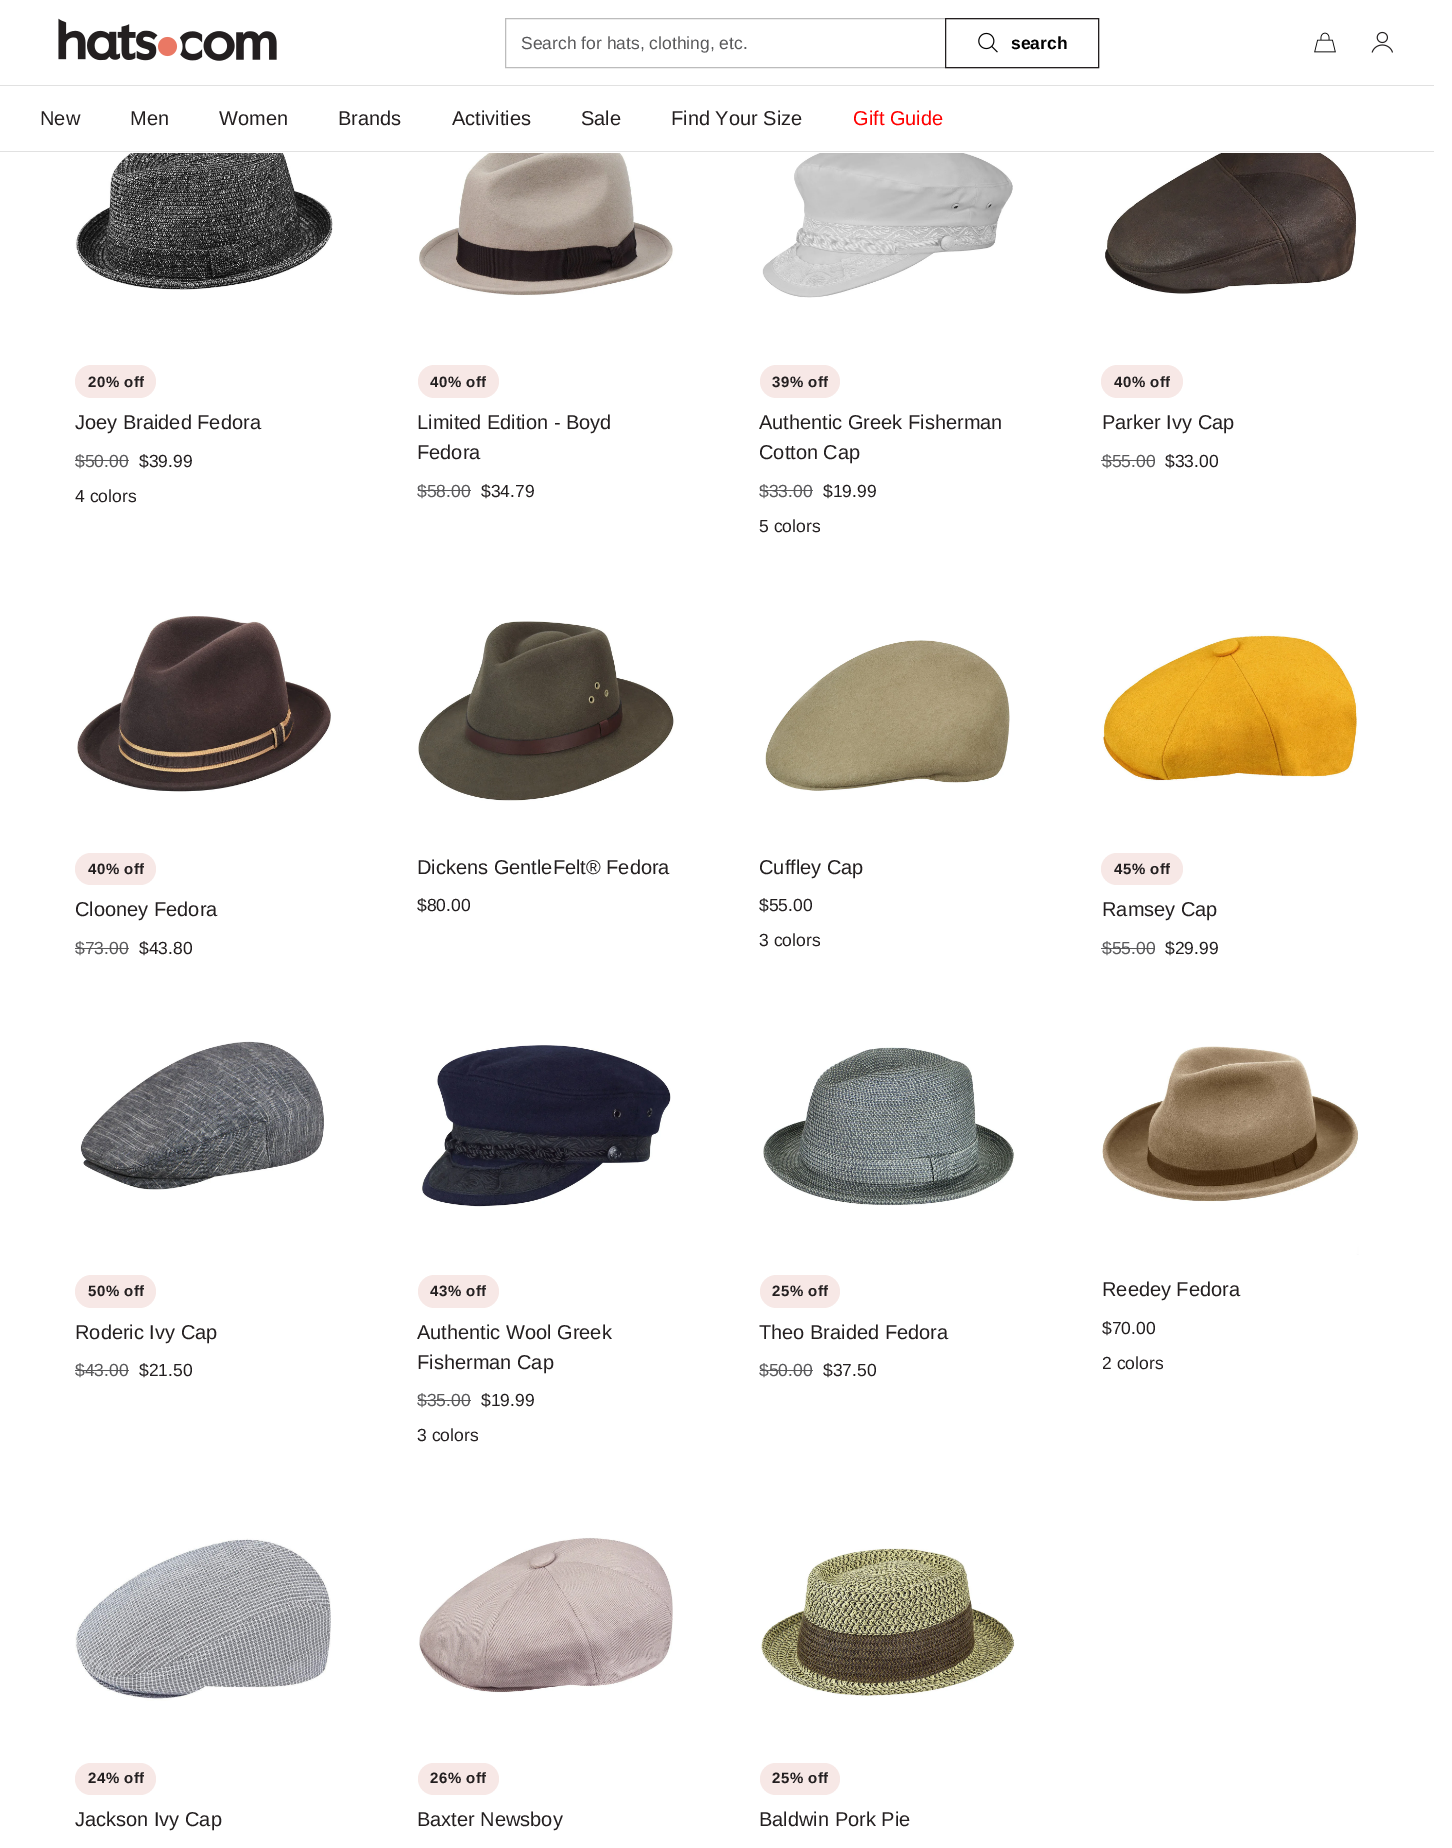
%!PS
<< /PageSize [1452 1848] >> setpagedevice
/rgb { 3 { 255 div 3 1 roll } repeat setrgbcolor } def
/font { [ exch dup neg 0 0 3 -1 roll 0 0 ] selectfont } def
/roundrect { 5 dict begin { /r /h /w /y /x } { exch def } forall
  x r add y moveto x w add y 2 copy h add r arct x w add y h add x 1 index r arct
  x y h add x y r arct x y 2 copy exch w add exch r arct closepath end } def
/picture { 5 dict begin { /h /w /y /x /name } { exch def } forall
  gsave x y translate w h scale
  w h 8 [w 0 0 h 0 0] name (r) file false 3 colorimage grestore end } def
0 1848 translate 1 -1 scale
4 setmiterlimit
255 255 255 rgb
0 0 1452 1848 rectfill
(img/1.rgb) 58 18 219 43 picture
188 188 188 rgb
505.5 18.5 593 49 rectstroke
35 31 32 rgb
945.5 18.5 153 49 rectstroke
(img/2.rgb) 978 32 20 21 picture
(img/3.rgb) 1314 32 22 21 picture
(img/4.rgb) 1371 31 22 22 picture
225 225 225 rgb
0 85 1434 1 rectfill
0 151 1434 1 rectfill
(img/5.rgb) 75 153 258 137 picture
247 232 230 rgb
75 365 81 33 16.5 roundrect fill
89 89 91 rgb
75 460 54 1 rectfill
(img/6.rgb) 419 153 256 143 picture
247 232 230 rgb
418 365 81 33 16.5 roundrect fill
89 89 91 rgb
418 490 53 1 rectfill
(img/7.rgb) 762 153 251 145 picture
247 232 230 rgb
760 365 80 33 16.5 roundrect fill
89 89 91 rgb
760 490 53 1 rectfill
(img/8.rgb) 1105 153 252 141 picture
247 232 230 rgb
1101 365 82 33 16.5 roundrect fill
89 89 91 rgb
1101 460 54 1 rectfill
(img/9.rgb) 77 616 254 176 picture
247 232 230 rgb
75 853 81 32 16 roundrect fill
89 89 91 rgb
75 948 54 1 rectfill
(img/10.rgb) 418 621 257 180 picture
(img/11.rgb) 765 640 245 151 picture
(img/12.rgb) 1102 634 256 147 picture
247 232 230 rgb
1101 853 82 32 16 roundrect fill
89 89 91 rgb
1101 948 54 1 rectfill
(img/13.rgb) 80 1041 244 149 picture
247 232 230 rgb
75 1275 81 33 16.5 roundrect fill
89 89 91 rgb
75 1370 54 1 rectfill
(img/14.rgb) 421 1045 250 162 picture
247 232 230 rgb
418 1275 81 33 16.5 roundrect fill
89 89 91 rgb
418 1400 53 1 rectfill
(img/15.rgb) 763 1046 252 160 picture
247 232 230 rgb
760 1275 80 33 16.5 roundrect fill
89 89 91 rgb
760 1370 53 1 rectfill
(img/16.rgb) 1102 1046 257 209 picture
(img/17.rgb) 75 1538 256 163 picture
247 232 230 rgb
75 1763 81 32 16 roundrect fill
(img/18.rgb) 419 1537 254 156 picture
418 1763 81 32 16 roundrect fill
(img/19.rgb) 760 1548 255 149 picture
760 1763 80 32 16 roundrect fill
/LiberationSans-Regular 17.5 font
89 89 91 rgb
521 49 moveto (Search for hats, clothing, etc.) show
/LiberationSans-Bold 17.5 font
0 0 0 rgb
1011 49 moveto (search) show
/LiberationSans-Regular 20 font
35 31 32 rgb
[
  [(New) 40 125]
  [(Men) 130 125]
  [(Women) 219 125]
  [(Brands) 338 125]
  [(Activities) 452 125]
  [(Sale) 581 125]
  [(Find Your Size) 671 125]
] { aload pop moveto show } forall
255 0 0 rgb
853 125 moveto (Gift Guide) show
/LiberationSans-Bold 15 font
35 31 32 rgb
88 387 moveto 0.5 0 (20% off) ashow
/LiberationSans-Regular 20 font
75 429 moveto (Joey Braided Fedora) show
/LiberationSans-Regular 17.5 font
89 89 91 rgb
75 467 moveto ($50.00) show
35 31 32 rgb
139 467 moveto ($39.99) show
75 502 moveto (4 colors) show
/LiberationSans-Bold 15 font
430 387 moveto 0.5 0 (40% off) ashow
/LiberationSans-Regular 20 font
417 429 moveto (Limited Edition - Boyd) show
417 459 moveto (Fedora) show
/LiberationSans-Regular 17.5 font
89 89 91 rgb
417 497 moveto ($58.00) show
35 31 32 rgb
481 497 moveto ($34.79) show
/LiberationSans-Bold 15 font
772 387 moveto 0.5 0 (39% off) ashow
/LiberationSans-Regular 20 font
759 429 moveto (Authentic Greek Fisherman) show
759 459 moveto (Cotton Cap) show
/LiberationSans-Regular 17.5 font
89 89 91 rgb
759 497 moveto ($33.00) show
35 31 32 rgb
823 497 moveto ($19.99) show
759 532 moveto (5 colors) show
/LiberationSans-Bold 15 font
1114 387 moveto 0.5 0 (40% off) ashow
/LiberationSans-Regular 20 font
1102 429 moveto (Parker Ivy Cap) show
/LiberationSans-Regular 17.5 font
89 89 91 rgb
1102 467 moveto ($55.00) show
35 31 32 rgb
1165 467 moveto ($33.00) show
/LiberationSans-Bold 15 font
88 874 moveto 0.5 0 (40% off) ashow
/LiberationSans-Regular 20 font
75 916 moveto (Clooney Fedora) show
/LiberationSans-Regular 17.5 font
89 89 91 rgb
75 954 moveto ($73.00) show
35 31 32 rgb
139 954 moveto ($43.80) show
/LiberationSans-Regular 20 font
417 874 moveto (Dickens GentleFelt® Fedora) show
/LiberationSans-Regular 17.5 font
417 911 moveto ($80.00) show
/LiberationSans-Regular 20 font
759 874 moveto (Cuffley Cap) show
/LiberationSans-Regular 17.5 font
759 911 moveto ($55.00) show
759 946 moveto (3 colors) show
/LiberationSans-Bold 15 font
1114 874 moveto 0.5 0 (45% off) ashow
/LiberationSans-Regular 20 font
1102 916 moveto (Ramsey Cap) show
/LiberationSans-Regular 17.5 font
89 89 91 rgb
1102 954 moveto ($55.00) show
35 31 32 rgb
1165 954 moveto ($29.99) show
/LiberationSans-Bold 15 font
88 1296 moveto 0.5 0 (50% off) ashow
/LiberationSans-Regular 20 font
75 1339 moveto (Roderic Ivy Cap) show
/LiberationSans-Regular 17.5 font
89 89 91 rgb
75 1376 moveto ($43.00) show
35 31 32 rgb
139 1376 moveto ($21.50) show
/LiberationSans-Bold 15 font
430 1296 moveto 0.5 0 (43% off) ashow
/LiberationSans-Regular 20 font
417 1339 moveto (Authentic Wool Greek) show
417 1369 moveto (Fisherman Cap) show
/LiberationSans-Regular 17.5 font
89 89 91 rgb
417 1406 moveto ($35.00) show
35 31 32 rgb
481 1406 moveto ($19.99) show
417 1441 moveto (3 colors) show
/LiberationSans-Bold 15 font
772 1296 moveto 0.5 0 (25% off) ashow
/LiberationSans-Regular 20 font
759 1339 moveto (Theo Braided Fedora) show
/LiberationSans-Regular 17.5 font
89 89 91 rgb
759 1376 moveto ($50.00) show
35 31 32 rgb
823 1376 moveto ($37.50) show
/LiberationSans-Regular 20 font
1102 1296 moveto (Reedey Fedora) show
/LiberationSans-Regular 17.5 font
1102 1334 moveto ($70.00) show
1102 1369 moveto (2 colors) show
/LiberationSans-Bold 15 font
88 1783 moveto 0.5 0 (24% off) ashow
/LiberationSans-Regular 20 font
75 1826 moveto (Jackson Ivy Cap) show
/LiberationSans-Bold 15 font
430 1783 moveto 0.5 0 (26% off) ashow
/LiberationSans-Regular 20 font
417 1826 moveto (Baxter Newsboy) show
/LiberationSans-Bold 15 font
772 1783 moveto 0.5 0 (25% off) ashow
/LiberationSans-Regular 20 font
759 1826 moveto (Baldwin Pork Pie) show
showpage
